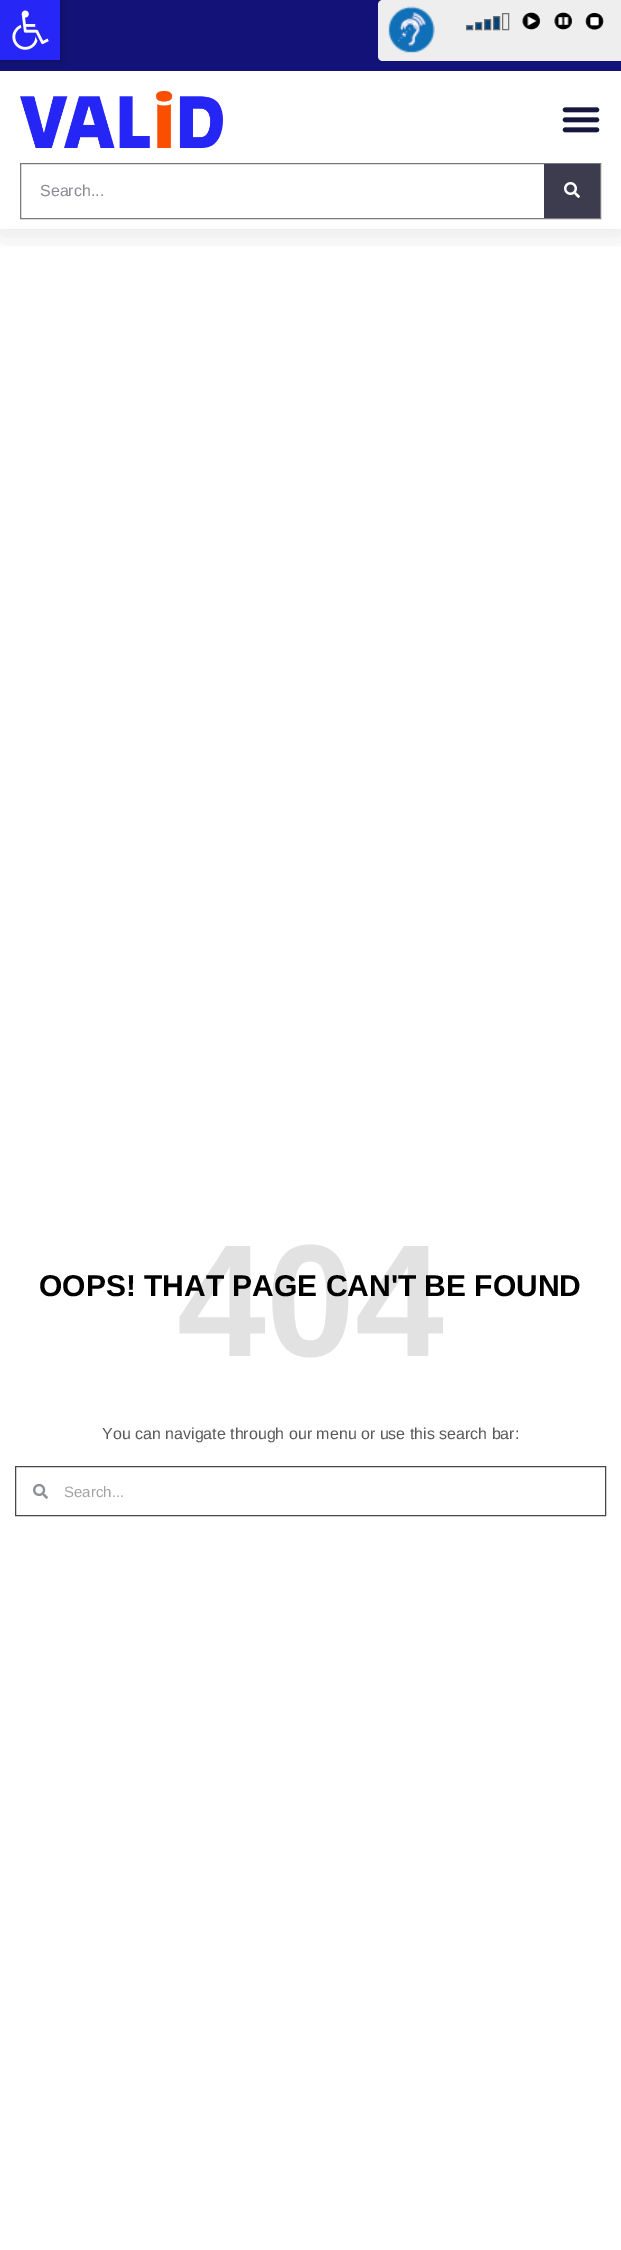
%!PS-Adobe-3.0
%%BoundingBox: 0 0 621 2250
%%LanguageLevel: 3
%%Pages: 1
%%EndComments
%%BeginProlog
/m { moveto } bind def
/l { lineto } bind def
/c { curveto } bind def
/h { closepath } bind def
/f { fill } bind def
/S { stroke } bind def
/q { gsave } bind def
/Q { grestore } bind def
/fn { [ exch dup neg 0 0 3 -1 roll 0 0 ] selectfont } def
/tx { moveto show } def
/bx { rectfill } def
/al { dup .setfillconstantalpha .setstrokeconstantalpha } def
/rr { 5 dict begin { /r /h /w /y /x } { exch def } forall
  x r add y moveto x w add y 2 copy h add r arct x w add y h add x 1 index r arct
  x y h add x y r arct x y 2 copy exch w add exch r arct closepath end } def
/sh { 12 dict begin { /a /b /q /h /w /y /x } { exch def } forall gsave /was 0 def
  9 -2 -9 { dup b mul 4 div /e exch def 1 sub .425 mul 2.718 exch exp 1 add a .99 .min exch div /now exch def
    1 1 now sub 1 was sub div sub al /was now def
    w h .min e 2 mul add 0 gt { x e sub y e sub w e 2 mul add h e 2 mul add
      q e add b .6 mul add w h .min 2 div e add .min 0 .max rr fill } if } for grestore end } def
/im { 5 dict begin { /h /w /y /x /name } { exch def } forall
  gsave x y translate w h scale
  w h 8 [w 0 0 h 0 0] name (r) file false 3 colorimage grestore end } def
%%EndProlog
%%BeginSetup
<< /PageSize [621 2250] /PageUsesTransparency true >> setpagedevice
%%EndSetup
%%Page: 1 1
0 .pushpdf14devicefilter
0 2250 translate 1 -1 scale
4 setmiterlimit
1 setgray
0 0 621 2250 bx
q
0 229 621 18 rectclip
0 setgray
0 5 621 229 0 15 0.1 sh
Q
0.071 0.071 0.471 setrgbcolor
0 0 621 71 bx
0.933 setgray
383 0 m 621 0 l 621 61 l 383 61 l 380 61 378 59 378 56 c 378 5 l 378 2 380 0 383 0 c h f
(image0.raw) 388 6 47 47 im
0 0.263 0.478 setrgbcolor
466.5 25.5 m 472.5 25.5 l 472.5 29.5 l 466.5 29.5 l h q f Q
0.447 setgray
S
0 0.263 0.478 setrgbcolor
475.5 22.5 m 481.5 22.5 l 481.5 29.5 l 475.5 29.5 l h q f Q
0.447 setgray
S
0 0.263 0.478 setrgbcolor
484.5 19.5 m 490.5 19.5 l 490.5 29.5 l 484.5 29.5 l h q f Q
0.447 setgray
S
0 0.263 0.478 setrgbcolor
493.5 16.5 m 499.5 16.5 l 499.5 29.5 l 493.5 29.5 l h q f Q
0.447 setgray
S
502.5 13.5 6 16 rectstroke
(image1.raw) 522 12 18 18 im
(image2.raw) 554 12 18 18 im
(image3.raw) 585 13 19 17 im
0 setgray
0 0 60 60 0 5 0.2 sh
0.149 0.149 0.969 setrgbcolor
0 0 60 60 bx
(image4.raw) 12 10 37 40 im
(image5.raw) 20 91 203 57 im
(image6.raw) 562 107 38 26 im
0.478 setgray
20.5 163.5 580 55 rectstroke
/LiberationSans-Regular 16 fn
0.541 0.541 0.584 setrgbcolor
(Search...) 40 196 tx
0.235 0.235 0.306 setrgbcolor
544 164 56 54 bx
(image7.raw) 564 182 16 16 im
/LiberationSans-Bold 160 fn
0.886 setgray
(404) 177 1356 tx
/LiberationSans-Bold 30 fn
0 setgray
(OOPS! THAT PAGE CAN'T BE FOUND) 39 1296 tx
/LiberationSans-Regular 16 fn
0.349 setgray
(You can navigate through our menu or use this search bar:) 102 1439 tx
0.278 setgray
15.5 1466.5 590 49 rectstroke
(image8.raw) 33 1483 15 16 im
/LiberationSans-Regular 15 fn
0.639 setgray
(Search...) 64 1497 tx
.poppdf14devicefilter showpage
%%EOF
